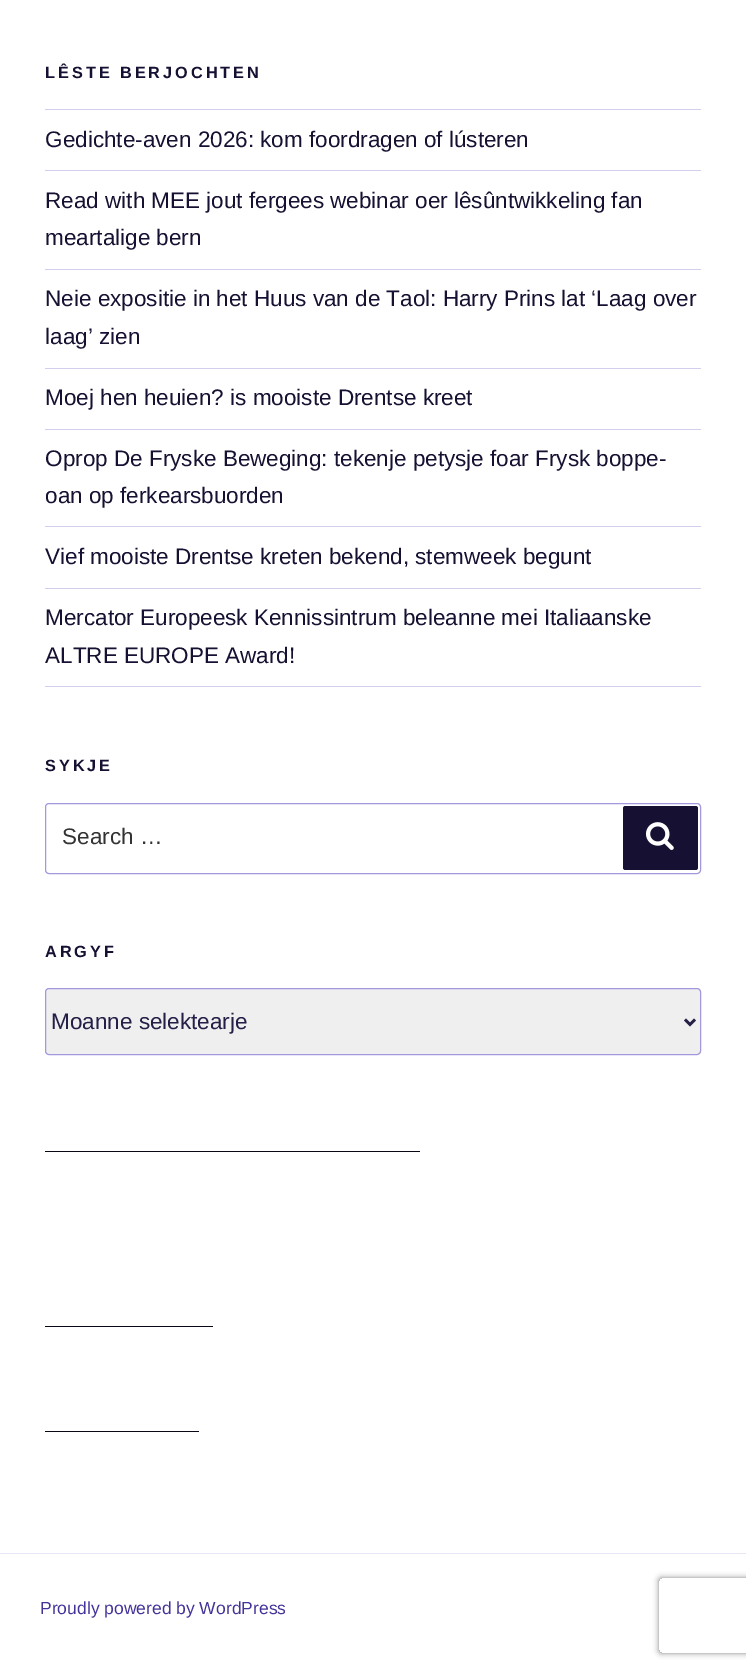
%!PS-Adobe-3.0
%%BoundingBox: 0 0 746 1669
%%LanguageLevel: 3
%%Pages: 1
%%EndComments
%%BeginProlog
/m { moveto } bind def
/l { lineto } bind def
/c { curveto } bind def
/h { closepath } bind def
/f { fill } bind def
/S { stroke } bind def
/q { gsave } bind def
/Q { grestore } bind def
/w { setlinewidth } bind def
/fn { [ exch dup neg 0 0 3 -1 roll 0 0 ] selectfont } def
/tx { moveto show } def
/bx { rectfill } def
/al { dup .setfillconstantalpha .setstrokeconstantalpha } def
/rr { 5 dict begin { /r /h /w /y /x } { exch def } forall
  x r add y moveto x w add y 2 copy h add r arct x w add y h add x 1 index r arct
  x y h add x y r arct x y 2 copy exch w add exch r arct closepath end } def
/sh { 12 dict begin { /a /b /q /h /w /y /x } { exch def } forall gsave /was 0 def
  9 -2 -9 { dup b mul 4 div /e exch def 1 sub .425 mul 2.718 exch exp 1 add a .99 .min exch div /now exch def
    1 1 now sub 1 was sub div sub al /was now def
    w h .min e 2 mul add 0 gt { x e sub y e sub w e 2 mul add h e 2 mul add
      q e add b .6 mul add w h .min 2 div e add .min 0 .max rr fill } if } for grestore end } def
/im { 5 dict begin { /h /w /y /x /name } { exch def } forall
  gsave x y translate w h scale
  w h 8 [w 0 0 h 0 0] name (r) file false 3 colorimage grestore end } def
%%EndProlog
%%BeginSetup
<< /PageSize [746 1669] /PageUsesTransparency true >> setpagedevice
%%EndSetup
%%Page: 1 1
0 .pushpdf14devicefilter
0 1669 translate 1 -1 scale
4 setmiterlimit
1 setgray
0 0 746 1669 bx
/LiberationSans-Bold 16.25 fn
0.086 0.067 0.196 setrgbcolor
45 78 m 3 0 (LÊSTE BERJOCHTEN) ashow
0.827 0.804 0.933 setrgbcolor
45 109 656 1 bx
45 170 656 1 bx
/LiberationSans-Regular 22.5 fn
0.086 0.067 0.196 setrgbcolor
(Gedichte-aven 2026: kom foordragen of lústeren) 45 147 tx
0.827 0.804 0.933 setrgbcolor
45 269 656 1 bx
0.086 0.067 0.196 setrgbcolor
(Read with MEE jout fergees webinar oer lêsûntwikkeling fan) 45 208 tx
(meartalige bern) 45 245 tx
0.827 0.804 0.933 setrgbcolor
45 368 656 1 bx
0.086 0.067 0.196 setrgbcolor
(Neie expositie in het Huus van de Taol: Harry Prins lat ‘Laag over) 45 306 tx
(laag’ zien) 45 344 tx
0.827 0.804 0.933 setrgbcolor
45 429 656 1 bx
0.086 0.067 0.196 setrgbcolor
(Moej hen heuien? is mooiste Drentse kreet) 45 405 tx
0.827 0.804 0.933 setrgbcolor
45 526 656 1 bx
0.086 0.067 0.196 setrgbcolor
(Oprop De Fryske Beweging: tekenje petysje foar Frysk boppe-) 45 466 tx
(oan op ferkearsbuorden) 45 503 tx
0.827 0.804 0.933 setrgbcolor
45 588 656 1 bx
0.086 0.067 0.196 setrgbcolor
(Vief mooiste Drentse kreten bekend, stemweek begunt) 45 564 tx
0.827 0.804 0.933 setrgbcolor
45 686 656 1 bx
0.086 0.067 0.196 setrgbcolor
(Mercator Europeesk Kennissintrum beleanne mei Italiaanske) 45 625 tx
(ALTRE EUROPE Award!) 45 663 tx
/LiberationSans-Bold 16.25 fn
45 771 m 3 0 (SYKJE) ashow
0.639 0.596 0.867 setrgbcolor
45.5 803.5 655 70 3.5 rr S
/LiberationSans-Regular 22.5 fn
0.2 setgray
(Search …) 62 844 tx
0.086 0.067 0.196 setrgbcolor
623 806 75 64 2.5 rr f
(image0.raw) 645 822 29 28 im
/LiberationSans-Bold 16.25 fn
45 957 m 3 0 (ARGYF) ashow
0.937 setgray
45.5 988.5 655 66 3.5 rr q f Q
0.639 0.596 0.867 setrgbcolor
S
0.145 0.122 0.278 setrgbcolor
2.5 w
685 1019.5 m 690 1024.5 l 695 1019.5 l S
/LiberationSans-Regular 22.5 fn
(Moanne selektearje) 51 1029 tx
0.039 0.031 0.09 setrgbcolor
45 1151 375 1 bx
45 1326 168 1 bx
45 1431 154 1 bx
0.906 0.894 0.965 setrgbcolor
0 1553 746 1 bx
/LiberationSans-Regular 17.5 fn
0.267 0.2 0.6 setrgbcolor
(Proudly powered by WordPress) 40 1614 tx
q
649 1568 m 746 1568 l 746 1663 l 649 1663 l h 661.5 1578 m 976.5 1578 l 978 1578 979 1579 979 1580.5 c 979 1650.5 l 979 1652 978 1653 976.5 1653 c 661.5 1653 l 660 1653 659 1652 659 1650.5 c 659 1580.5 l 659 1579 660 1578 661.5 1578 c h eoclip newpath
0.502 setgray
659 1578 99 75 2.5 3 1 sh
Q
.poppdf14devicefilter showpage
%%EOF
